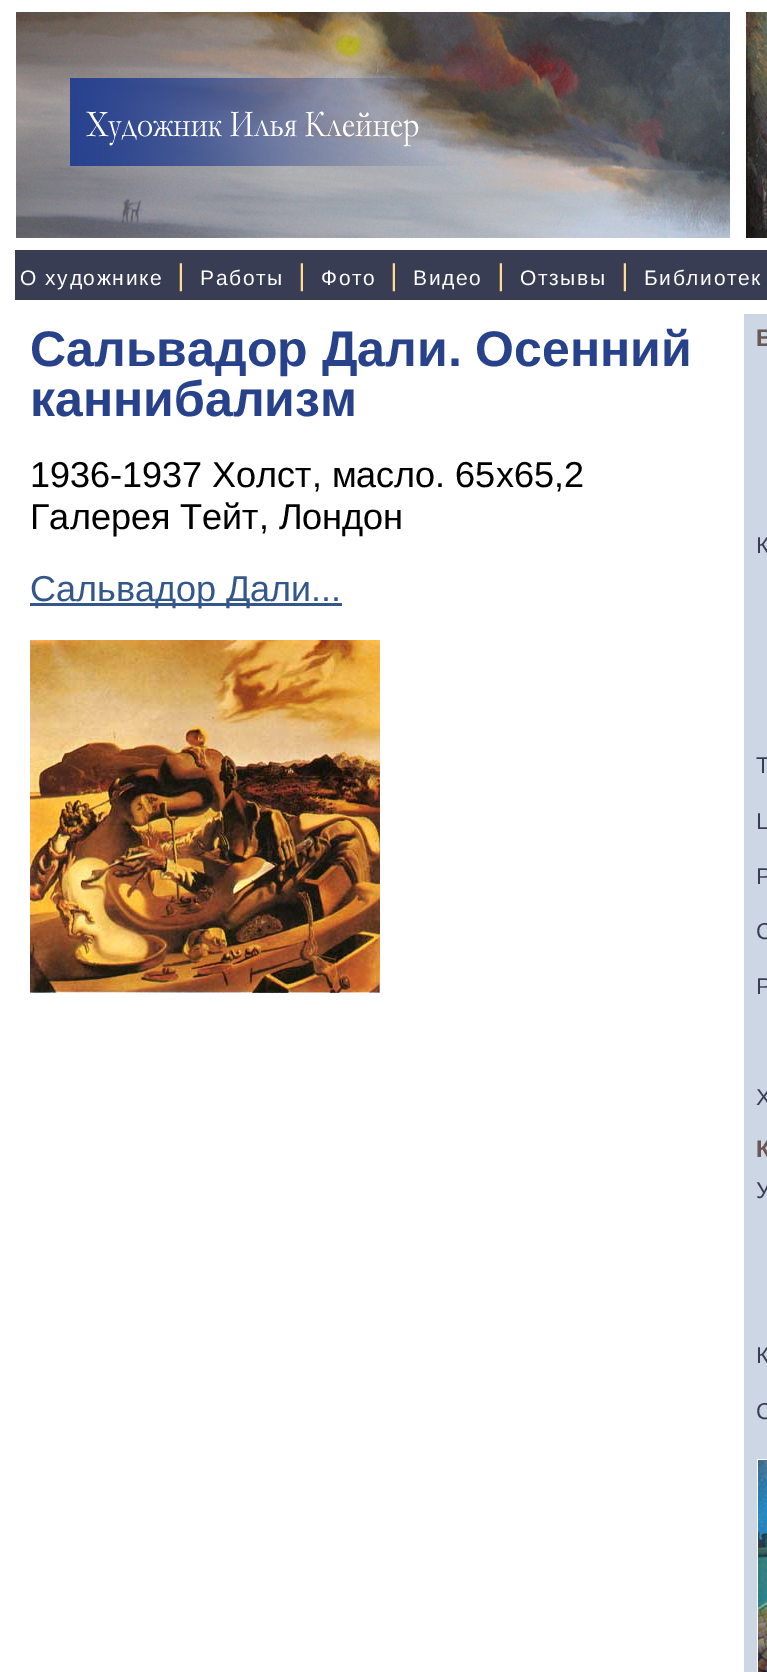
%!PS-Adobe-3.0
%%BoundingBox: 0 0 767 1672
%%LanguageLevel: 3
%%Pages: 1
%%EndComments
%%BeginProlog
/m { moveto } bind def
/fn { [ exch dup neg 0 0 3 -1 roll 0 0 ] selectfont } def
/tx { moveto show } def
/bx { rectfill } def
/im { 5 dict begin { /h /w /y /x /name } { exch def } forall
  gsave x y translate w h scale
  w h 8 [w 0 0 h 0 0] name (r) file false 3 colorimage grestore end } def
%%EndProlog
%%BeginSetup
<< /PageSize [767 1672] >> setpagedevice
%%EndSetup
%%Page: 1 1
0 1672 translate 1 -1 scale
4 setmiterlimit
1 setgray
0 0 767 1672 bx
(image0.raw) 15 8 752 232 im
0.224 0.239 0.329 setrgbcolor
15 250 752 50 bx
/LiberationSans-Regular 21 fn
1 setgray
20 285 m 1.6 0 (О художнике) ashow
/LiberationSans-Regular 30 fn
1 0.863 0.561 setrgbcolor
177 285 m 1.6 0 (|) ashow
/LiberationSans-Regular 21 fn
1 setgray
200 285 m 1.6 0 (Работы) ashow
/LiberationSans-Regular 30 fn
1 0.863 0.561 setrgbcolor
298 285 m 1.6 0 (|) ashow
/LiberationSans-Regular 21 fn
1 setgray
321 285 m 1.6 0 (Фото) ashow
/LiberationSans-Regular 30 fn
1 0.863 0.561 setrgbcolor
390 285 m 1.6 0 (|) ashow
/LiberationSans-Regular 21 fn
1 setgray
413 285 m 1.6 0 (Видео) ashow
/LiberationSans-Regular 30 fn
1 0.863 0.561 setrgbcolor
497 285 m 1.6 0 (|) ashow
/LiberationSans-Regular 21 fn
1 setgray
520 285 m 1.6 0 (Отзывы) ashow
/LiberationSans-Regular 30 fn
1 0.863 0.561 setrgbcolor
621 285 m 1.6 0 (|) ashow
/LiberationSans-Regular 21 fn
1 setgray
644 285 m 1.6 0 (Библиотек) ashow
/LiberationSans-Bold 50 fn
0.153 0.255 0.545 setrgbcolor
(Сальвадор Дали. Осенний) 30 366 tx
(каннибализм) 30 416 tx
/LiberationSans-Regular 36 fn
0 setgray
(1936-1937 Холст, масло. 65х65,2) 30 487 tx
(Галерея Тейт, Лондон) 30 529 tx
0.204 0.341 0.545 setrgbcolor
30 603 312 3 bx
(Сальвадор Дали...) 30 601 tx
(image1.raw) 30 640 350 353 im
0.804 0.839 0.898 setrgbcolor
744 314 23 1358 bx
/LiberationSans-Bold 24 fn
0.408 0.341 0.329 setrgbcolor
(В) 756 346 tx
/LiberationSans-Regular 23 fn
0.224 0.239 0.329 setrgbcolor
(К) 756 553 tx
(Т) 756 773 tx
(L) 756 829 tx
(Р) 756 884 tx
(С) 756 939 tx
(Р) 756 994 tx
(Х) 756 1105 tx
/LiberationSans-Bold 24 fn
0.408 0.341 0.329 setrgbcolor
(К) 756 1157 tx
/LiberationSans-Regular 23 fn
0.224 0.239 0.329 setrgbcolor
(У) 756 1198 tx
(К) 756 1363 tx
(С) 756 1419 tx
1 setgray
757.5 1459.5 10 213 rectstroke
(image2.raw) 758 1460 9 212 im
showpage
%%EOF
